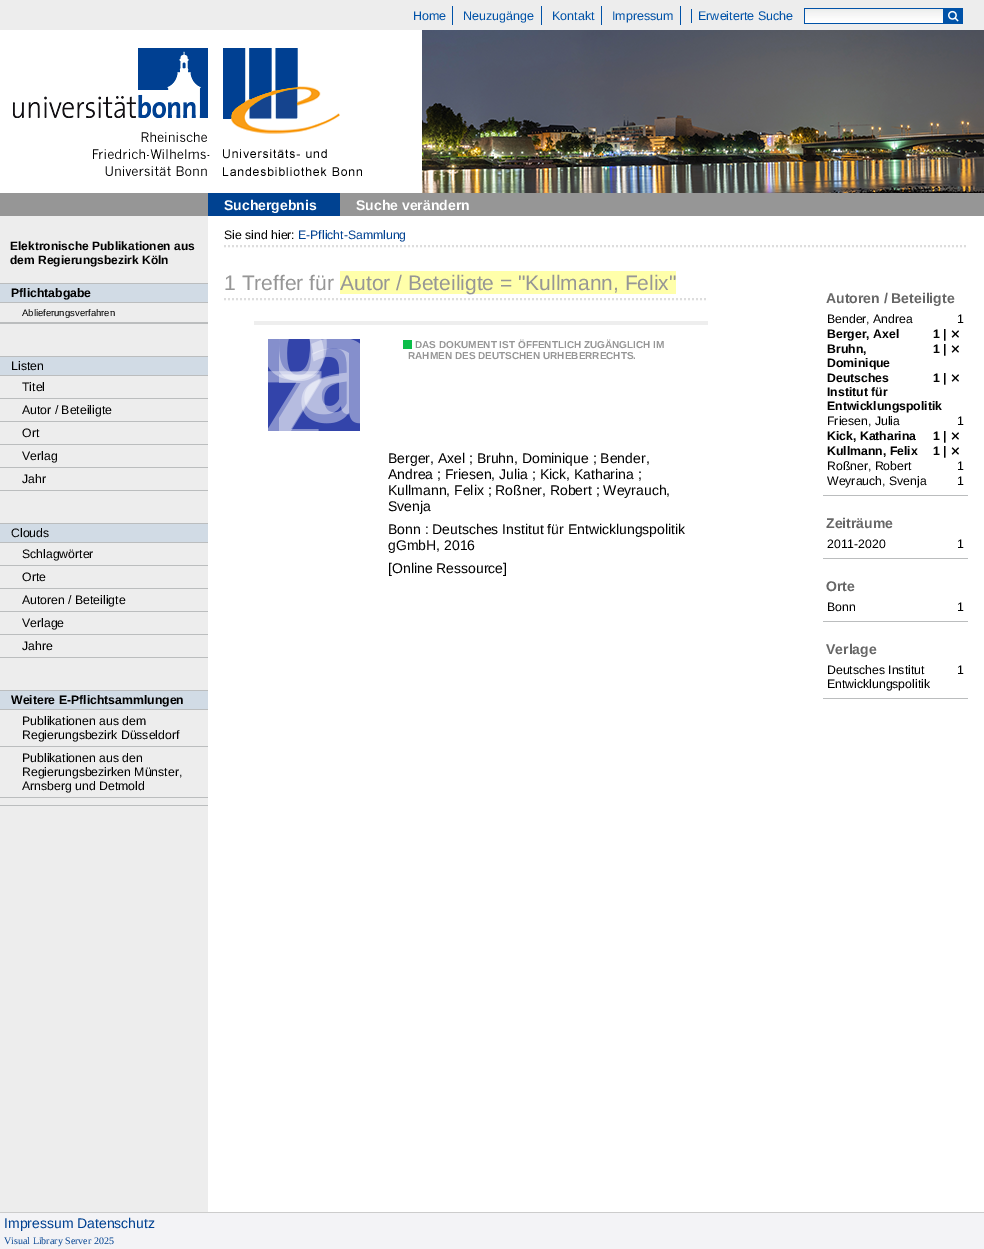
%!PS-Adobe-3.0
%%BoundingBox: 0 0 984 1249
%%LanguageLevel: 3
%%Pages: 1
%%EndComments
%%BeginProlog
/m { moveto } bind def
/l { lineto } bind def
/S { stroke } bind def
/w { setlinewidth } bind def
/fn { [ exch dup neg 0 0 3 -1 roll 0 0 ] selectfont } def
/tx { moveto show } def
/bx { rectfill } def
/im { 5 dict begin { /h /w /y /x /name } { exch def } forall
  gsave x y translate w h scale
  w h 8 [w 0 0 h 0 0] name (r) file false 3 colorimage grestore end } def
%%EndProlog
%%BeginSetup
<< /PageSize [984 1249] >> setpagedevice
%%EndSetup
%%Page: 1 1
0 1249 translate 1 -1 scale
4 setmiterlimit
1 setgray
0 0 984 1249 bx
0.929 setgray
0 0 984 30 bx
/LiberationSans-Regular 12.5 fn
0 0.322 0.659 setrgbcolor
(Home) 413 20 tx
452 6 1 19 bx
(Neuzugänge) 463 20 tx
541 6 1 19 bx
(Kontakt) 552 20 tx
601 6 1 19 bx
(Impressum) 612 20 tx
680 6 1 19 bx
691 9 1 14 bx
(Erweiterte Suche) 698 20 tx
(image0.raw) 805 9 138 14 im
804 8 139 1 bx
943 8 20 15 bx
804 23 159 1 bx
804 8 1 16 bx
(image1.raw) 948 10 11 12 im
(image2.raw) 422 30 562 163 im
(image3.raw) 13 48 197 128 im
(image4.raw) 223 48 139 128 im
0.588 setgray
0 193 984 23 bx
0 0.259 0.569 setrgbcolor
208 193 132 23 bx
/LiberationSans-Bold 14 fn
1 setgray
(Suchergebnis) 224 210 tx
(Suche verändern) 356 210 tx
0.929 setgray
0 216 208 996 bx
/LiberationSans-Bold 12 fn
0 setgray
(Elektronische Publikationen aus) 10 250 tx
(dem Regierungsbezirk Köln) 10 264 tx
0.82 0.859 0.898 setrgbcolor
0 284 208 18 bx
0.733 0.741 0.745 setrgbcolor
0 283 208 1 bx
0 302 208 1 bx
/LiberationSans-Bold 12.25 fn
0 setgray
(Pflichtabgabe) 11 297 tx
0.733 0.741 0.745 setrgbcolor
0 322 208 2 bx
/LiberationSans-Regular 9.5 fn
0 setgray
(Ablieferungsverfahren) 22 316 tx
0.82 0.859 0.898 setrgbcolor
0 357 208 18 bx
0.733 0.741 0.745 setrgbcolor
0 356 208 1 bx
0 375 208 1 bx
/LiberationSans-Regular 12.25 fn
0 setgray
(Listen) 11 370 tx
0.733 0.741 0.745 setrgbcolor
0 398 208 1 bx
0 setgray
(Titel) 22 391 tx
0.733 0.741 0.745 setrgbcolor
0 421 208 1 bx
0 setgray
(Autor / Beteiligte) 22 414 tx
0.733 0.741 0.745 setrgbcolor
0 444 208 1 bx
0 setgray
(Ort) 22 437 tx
0.733 0.741 0.745 setrgbcolor
0 467 208 1 bx
0 setgray
(Verlag) 22 460 tx
0.733 0.741 0.745 setrgbcolor
0 490 208 1 bx
0 setgray
(Jahr) 22 483 tx
0.82 0.859 0.898 setrgbcolor
0 524 208 18 bx
0.733 0.741 0.745 setrgbcolor
0 523 208 1 bx
0 542 208 1 bx
0 setgray
(Clouds) 11 537 tx
0.733 0.741 0.745 setrgbcolor
0 565 208 1 bx
0 setgray
(Schlagwörter) 22 558 tx
0.733 0.741 0.745 setrgbcolor
0 588 208 1 bx
0 setgray
(Orte) 22 581 tx
0.733 0.741 0.745 setrgbcolor
0 611 208 1 bx
0 setgray
(Autoren / Beteiligte) 22 604 tx
0.733 0.741 0.745 setrgbcolor
0 634 208 1 bx
0 setgray
(Verlage) 22 627 tx
0.733 0.741 0.745 setrgbcolor
0 657 208 1 bx
0 setgray
(Jahre) 22 650 tx
0.82 0.859 0.898 setrgbcolor
0 691 208 18 bx
0.733 0.741 0.745 setrgbcolor
0 690 208 1 bx
0 709 208 1 bx
/LiberationSans-Bold 12.25 fn
0 setgray
(Weitere E-Pflichtsammlungen) 11 704 tx
0.733 0.741 0.745 setrgbcolor
0 805 208 1 bx
0 746 208 1 bx
/LiberationSans-Regular 12.25 fn
0 setgray
(Publikationen aus dem) 22 725 tx
(Regierungsbezirk Düsseldorf) 22 739 tx
0.733 0.741 0.745 setrgbcolor
0 797 208 1 bx
0 setgray
(Publikationen aus den) 22 762 tx
(Regierungsbezirken Münster,) 22 776 tx
(Arnsberg und Detmold) 22 790 tx
0.867 setgray
2 w
[2 2] 0 setdash
224 246 m 968 246 l S
0 setgray
(Sie sind hier:) 224 239 tx
0 0.255 0.569 setrgbcolor
(E-Pflicht-Sammlung) 298 239 tx
0.867 setgray
224 299 m 708 299 l S
/LiberationSans-Regular 21 fn
0.588 setgray
(1 Treffer für) 224 290 tx
1 1 0.667 setrgbcolor
340 271 336 23 bx
0.588 setgray
(Autor / Beteiligte = "Kullmann, Felix") 340 290 tx
0.933 setgray
254 321 454 4 bx
0.2 0.267 0.667 setrgbcolor
268 339 92 92 bx
(image5.raw) 268 339 92 92 im
(image6.raw) 279 339 70 92 im
0.043 0.745 0.286 setrgbcolor
403 340 9 9 bx
/LiberationSans-Bold 10 fn
0.588 setgray
(DAS DOKUMENT IST ÖFFENTLICH ZUGÄNGLICH IM) 415 348 tx
(RAHMEN DES DEUTSCHEN URHEBERRECHTS.) 408 359 tx
/LiberationSans-Regular 14 fn
0 setgray
(Berger, Axel ; Bruhn, Dominique ; Bender,) 388 463 tx
(Andrea ; Friesen, Julia ; Kick, Katharina ;) 388 479 tx
(Kullmann, Felix ; Roßner, Robert ; Weyrauch,) 388 495 tx
(Svenja) 388 511 tx
(Bonn : Deutsches Institut für Entwicklungspolitik) 388 534 tx
(gGmbH, 2016) 388 550 tx
([Online Ressource]) 388 573 tx
/LiberationSans-Bold 14 fn
0.4 setgray
(Autoren / Beteiligte) 826 303 tx
0.733 0.741 0.745 setrgbcolor
823 495 145 1 bx
/LiberationSans-Regular 12.25 fn
0 setgray
(Bender, Andrea) 827 323 tx
(1) 957 323 tx
/LiberationSans-Bold 12.25 fn
(Berger, Axel) 827 338 tx
(1 |) 933 338 tx
/DejaVuSans-Bold 12.25 fn
(⨯) 950 338 tx
/LiberationSans-Bold 12.25 fn
(Bruhn,) 827 353 tx
(1 |) 933 353 tx
/DejaVuSans-Bold 12.25 fn
(⨯) 950 353 tx
/LiberationSans-Bold 12.25 fn
(Dominique) 827 367 tx
(Deutsches) 827 382 tx
(1 |) 933 382 tx
/DejaVuSans-Bold 12.25 fn
(⨯) 950 382 tx
/LiberationSans-Bold 12.25 fn
(Institut für) 827 396 tx
(Entwicklungspolitik) 827 410 tx
/LiberationSans-Regular 12.25 fn
(Friesen, Julia) 827 425 tx
(1) 957 425 tx
/LiberationSans-Bold 12.25 fn
(Kick, Katharina) 827 440 tx
(1 |) 933 440 tx
/DejaVuSans-Bold 12.25 fn
(⨯) 950 440 tx
/LiberationSans-Bold 12.25 fn
(Kullmann, Felix) 827 455 tx
(1 |) 933 455 tx
/DejaVuSans-Bold 12.25 fn
(⨯) 950 455 tx
/LiberationSans-Regular 12.25 fn
(Roßner, Robert) 827 470 tx
(1) 957 470 tx
(Weyrauch, Svenja) 827 485 tx
(1) 957 485 tx
/LiberationSans-Bold 14 fn
0.4 setgray
(Zeiträume) 826 528 tx
0.733 0.741 0.745 setrgbcolor
823 558 145 1 bx
/LiberationSans-Regular 12.25 fn
0 setgray
(2011-2020) 827 548 tx
(1) 957 548 tx
/LiberationSans-Bold 14 fn
0.4 setgray
(Orte) 826 591 tx
0.733 0.741 0.745 setrgbcolor
823 621 145 1 bx
/LiberationSans-Regular 12.25 fn
0 setgray
(Bonn) 827 611 tx
(1) 957 611 tx
/LiberationSans-Bold 14 fn
0.4 setgray
(Verlage) 826 654 tx
0.733 0.741 0.745 setrgbcolor
823 698 145 1 bx
/LiberationSans-Regular 12.25 fn
0 setgray
(Deutsches Institut) 827 674 tx
(1) 957 674 tx
(Entwicklungspolitik) 827 688 tx
0.953 0.953 0.965 setrgbcolor
0 1213 984 36 bx
0.8 setgray
0 1212 984 1 bx
/LiberationSans-Regular 14 fn
0 0.255 0.569 setrgbcolor
(Impressum Datenschutz) 4 1228 tx
/LiberationSerif-Regular 10 fn
(Visual Library Server 2025) 4 1244 tx
showpage
%%EOF
